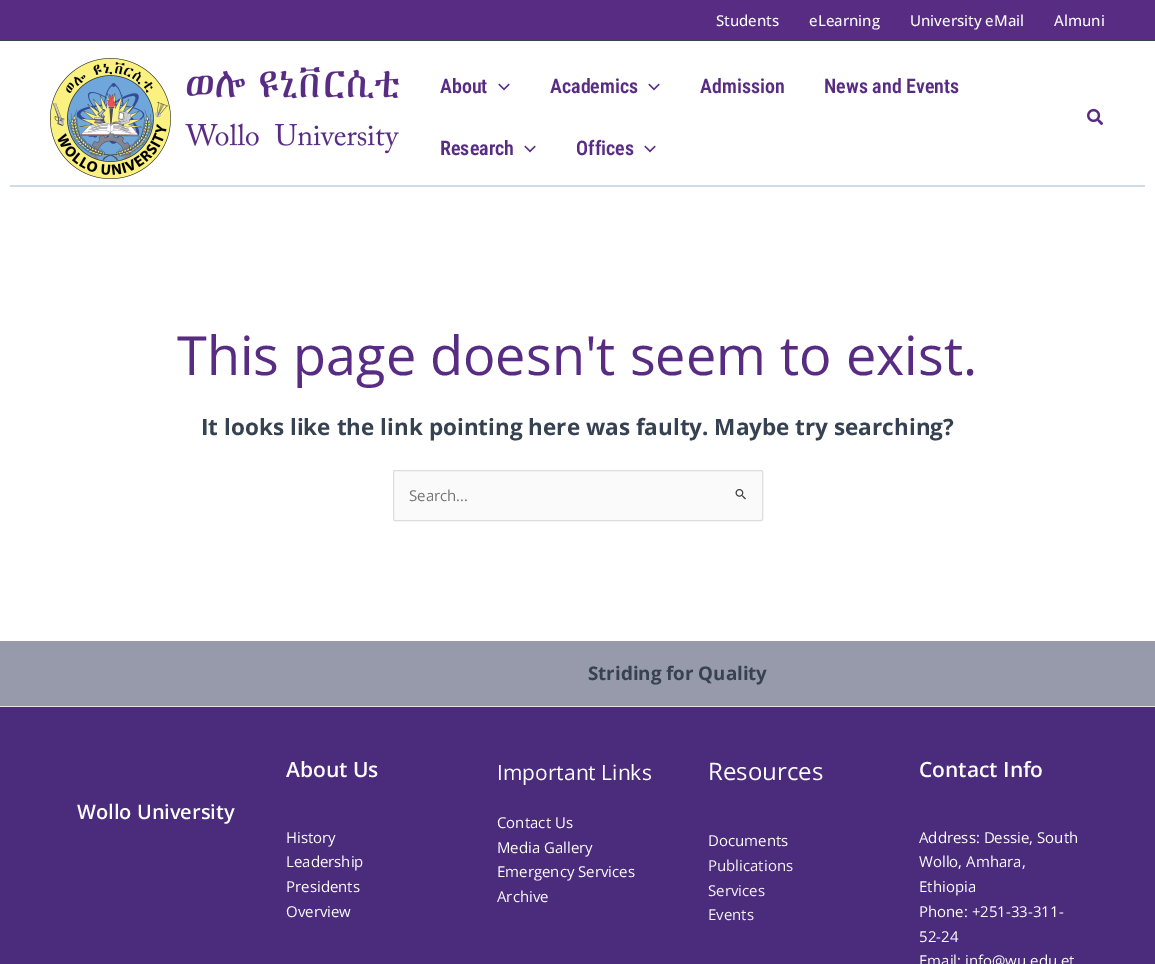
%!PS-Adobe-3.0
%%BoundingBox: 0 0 1155 964
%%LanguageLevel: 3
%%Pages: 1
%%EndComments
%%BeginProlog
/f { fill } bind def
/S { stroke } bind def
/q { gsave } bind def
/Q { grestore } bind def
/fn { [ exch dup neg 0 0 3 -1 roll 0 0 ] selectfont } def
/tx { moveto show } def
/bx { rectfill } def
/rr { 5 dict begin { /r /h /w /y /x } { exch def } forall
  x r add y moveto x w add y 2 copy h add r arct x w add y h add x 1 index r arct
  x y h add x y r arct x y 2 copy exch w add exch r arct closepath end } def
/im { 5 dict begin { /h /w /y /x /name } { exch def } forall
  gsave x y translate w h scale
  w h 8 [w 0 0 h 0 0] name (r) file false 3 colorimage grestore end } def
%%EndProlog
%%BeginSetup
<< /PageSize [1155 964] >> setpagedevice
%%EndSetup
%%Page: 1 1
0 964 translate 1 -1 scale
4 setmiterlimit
1 setgray
0 0 1155 964 bx
0.345 0.173 0.514 setrgbcolor
0 0 1155 40 bx
0.212 0.255 0.318 setrgbcolor
0 40 1155 1 bx
/OpenSans-Medium 15 fn
1 setgray
(Students) 716 26 tx
(eLearning) 809 26 tx
(University eMail) 910 26 tx
(Almuni) 1054 26 tx
0.82 0.855 0.898 setrgbcolor
10 185 1135 2 bx
(image0.raw) 50 58 350 121 im
/RobotoCondensed-SemiBold 20 fn
0.345 0.173 0.514 setrgbcolor
(About) 440 93 tx
(image1.raw) 498 83 12 8 im
(Academics) 550 93 tx
(image1.raw) 648 83 12 8 im
(Admission) 700 93 tx
(News and Events) 824 93 tx
(Research) 440 155 tx
(image1.raw) 524 145 12 8 im
(Offices) 576 155 tx
(image1.raw) 644 145 12 8 im
(image2.raw) 1087 108 16 17 im
/OpenSans-Regular 54 fn
(This page doesn't seem to exist.) 177 375 tx
/OpenSans-Bold 22.5 fn
0.212 0.255 0.318 setrgbcolor
(It looks like the link pointing here was faulty. Maybe try searching?) 201 435 tx
0.98 setgray
393.5 470.5 369 50 1.5 rr q f Q
0.867 setgray
S
/OpenSans-Regular 15 fn
0.459 setgray
(Search...) 409 501 tx
(image3.raw) 735 489 11 11 im
0.592 0.604 0.667 setrgbcolor
0 641 1155 65 bx
/OpenSans-Bold 18.75 fn
0.212 0.255 0.318 setrgbcolor
(Striding for Quality) 588 680 tx
0.294 0.169 0.486 setrgbcolor
0 707 1155 257 bx
0.902 setgray
0 706 1155 1 bx
/OpenSans-SemiBold 20 fn
1 setgray
(Wollo University) 77 819 tx
/OpenSans-SemiBold 21 fn
(About Us) 286 777 tx
/OpenSans-Regular 15 fn
(History) 286 843 tx
(Leadership) 286 867 tx
(Presidents) 286 892 tx
(Overview) 286 917 tx
/OpenSans-Regular 21 fn
(Important Links) 497 780 tx
/OpenSans-Regular 15 fn
(Contact Us) 497 828 tx
(Media Gallery) 497 853 tx
(Emergency Services) 497 877 tx
(Archive) 497 902 tx
/OpenSans-Regular 24 fn
(Resources) 708 780 tx
/OpenSans-Regular 15 fn
(Documents) 708 846 tx
0.961 setgray
(Publications) 708 871 tx
(Services) 708 896 tx
(Events) 708 920 tx
/OpenSans-SemiBold 21 fn
1 setgray
(Contact Info) 919 777 tx
/OpenSans-Regular 15 fn
(Address: Dessie, South) 919 843 tx
(Wollo, Amhara,) 919 867 tx
(Ethiopia) 919 892 tx
(Phone: +251-33-311-) 919 917 tx
(52-24) 919 942 tx
(Email: info@wu.edu.et) 919 966 tx
showpage
%%EOF
